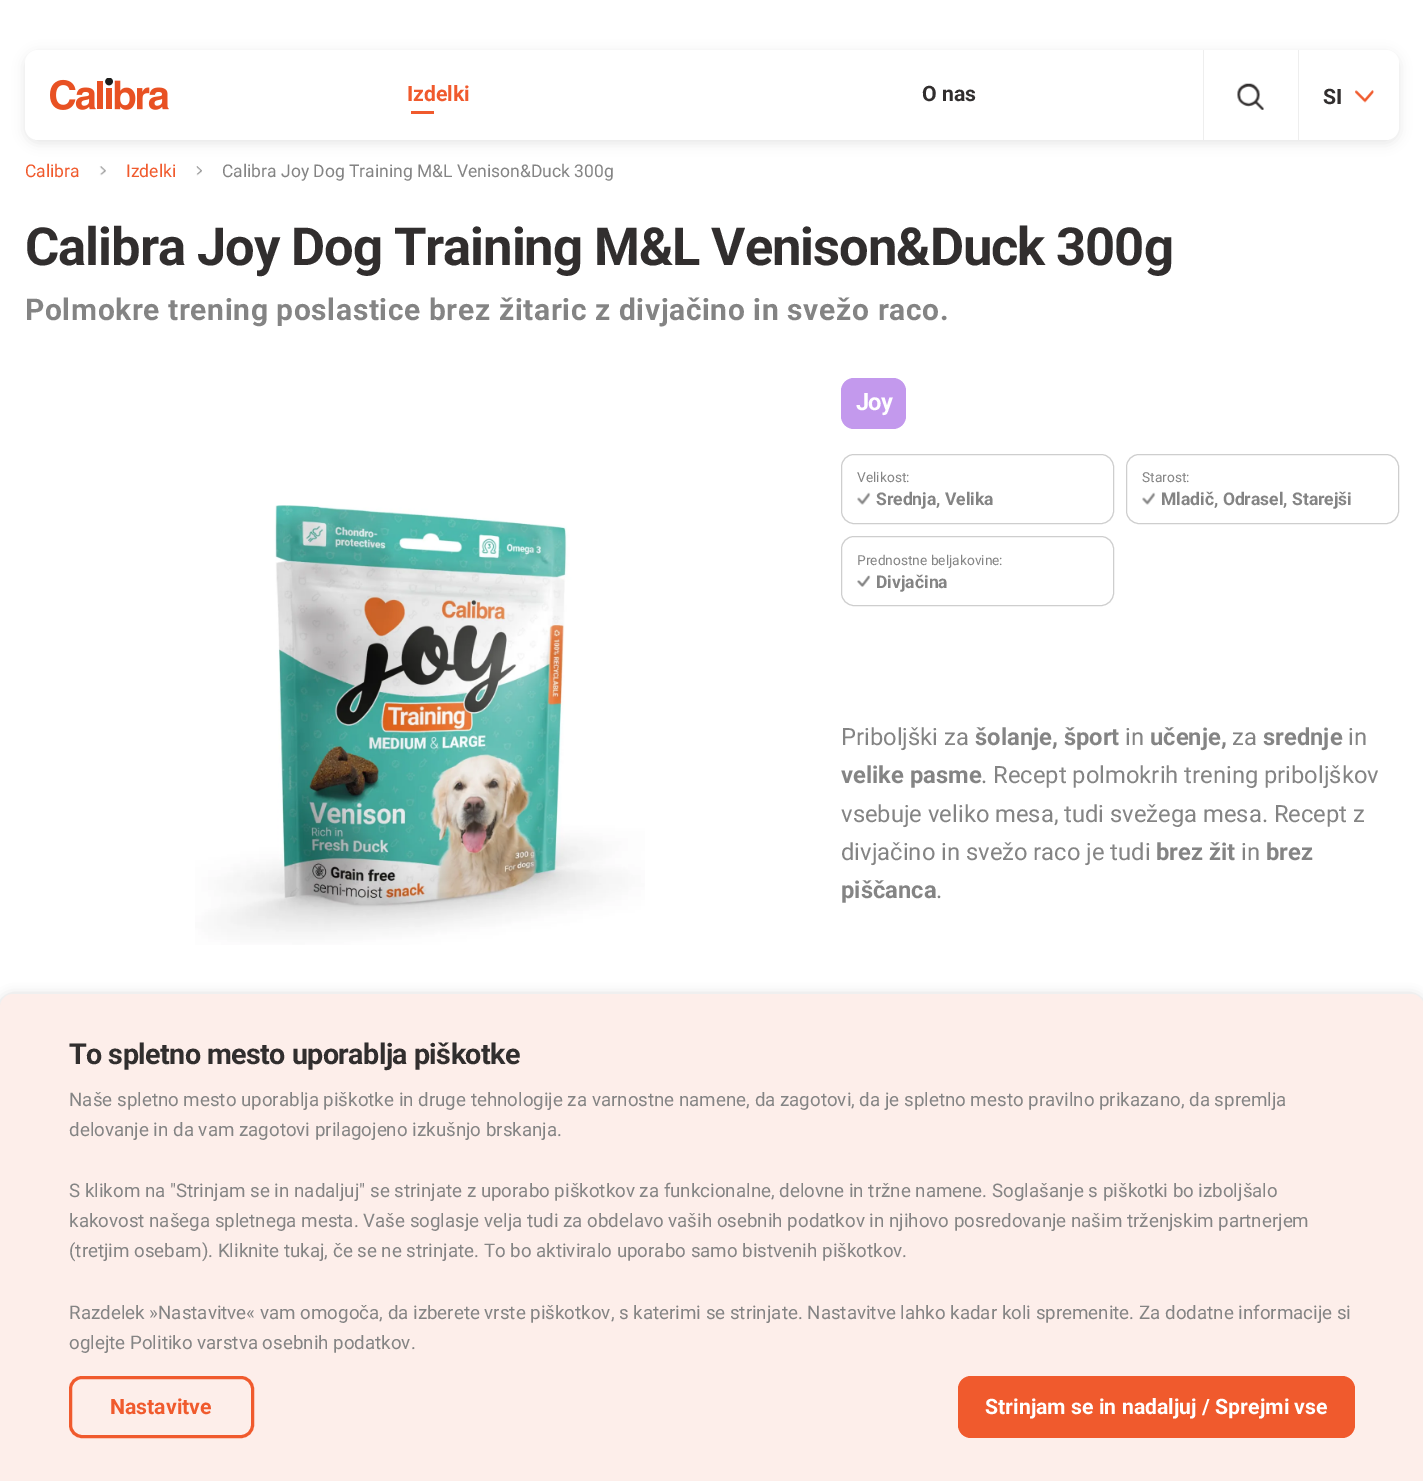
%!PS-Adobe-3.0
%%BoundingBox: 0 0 1423 1481
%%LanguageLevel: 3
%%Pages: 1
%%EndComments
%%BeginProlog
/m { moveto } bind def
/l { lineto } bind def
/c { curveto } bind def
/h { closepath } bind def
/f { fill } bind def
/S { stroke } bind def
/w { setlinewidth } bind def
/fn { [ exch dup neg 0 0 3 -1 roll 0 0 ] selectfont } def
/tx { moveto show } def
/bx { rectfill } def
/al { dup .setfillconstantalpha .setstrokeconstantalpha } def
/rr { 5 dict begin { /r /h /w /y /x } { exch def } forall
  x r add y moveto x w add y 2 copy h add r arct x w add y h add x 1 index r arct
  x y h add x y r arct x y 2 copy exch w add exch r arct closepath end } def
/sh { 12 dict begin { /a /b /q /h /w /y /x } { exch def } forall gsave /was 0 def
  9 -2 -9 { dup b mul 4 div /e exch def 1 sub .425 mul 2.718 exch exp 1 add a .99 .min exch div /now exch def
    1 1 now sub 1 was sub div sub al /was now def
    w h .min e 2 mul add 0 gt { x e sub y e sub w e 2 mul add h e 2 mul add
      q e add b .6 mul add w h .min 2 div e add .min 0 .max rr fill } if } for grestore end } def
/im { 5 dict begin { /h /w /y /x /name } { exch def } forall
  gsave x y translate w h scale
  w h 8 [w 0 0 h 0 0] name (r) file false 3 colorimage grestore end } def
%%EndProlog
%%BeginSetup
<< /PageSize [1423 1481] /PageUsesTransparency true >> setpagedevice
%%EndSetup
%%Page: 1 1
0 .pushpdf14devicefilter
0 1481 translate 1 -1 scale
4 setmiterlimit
1 setgray
0 0 1423 1481 bx
0 setgray
25 53 1374 90 13 6 0.1 sh
1 setgray
25 50 1374 90 13 rr f
(image0.raw) 50 78 119 32 im
/Roboto-Bold 21.25 fn
0.941 0.353 0.176 setrgbcolor
(Izdelki) 407 101 tx
411 111 23 3 bx
0.192 0.18 0.18 setrgbcolor
(O nas) 922 101 tx
0.933 setgray
1203 50 1 90 bx
(image1.raw) 1237 83 27 27 im
1298 50 1 90 bx
0.192 0.18 0.18 setrgbcolor
(SI) 1323 104 tx
(image2.raw) 1355 90 19 13 im
/Roboto-Regular 17.5 fn
0.941 0.353 0.176 setrgbcolor
(Calibra) 25 177 tx
(image3.raw) 99 166 7 10 im
(Izdelki) 126 177 tx
(image4.raw) 196 166 6 10 im
0.518 setgray
(Calibra Joy Dog Training M&L Venison&Duck 300g) 222 177 tx
/Roboto-Bold 52.5 fn
0.192 0.18 0.18 setrgbcolor
25 265 m -1.05 0 (Calibra Joy Dog Training M&L Venison&Duck 300g) ashow
/Roboto-Bold 30 fn
0.518 setgray
25 320 m 0.6 0 (Polmokre trening poslastice brez žitaric z divjačino in svežo raco.) ashow
(image5.raw) 195 505 450 440 im
0.765 0.6 0.929 setrgbcolor
841 378 65 51 13 rr f
/Roboto-Bold 23.75 fn
1 setgray
856 410 m -1 0 (Joy) ashow
0.808 setgray
841.5 454.5 272 69 12.5 rr S
/Roboto-Regular 13.75 fn
0.518 setgray
(Velikost:) 857 482 tx
(image6.raw) 857 492 14 13 im
/Roboto-Bold 17.5 fn
(Srednja, Velika) 876 505 tx
0.808 setgray
1126.5 454.5 272 69 12.5 rr S
/Roboto-Regular 13.75 fn
0.518 setgray
(Starost:) 1142 482 tx
(image6.raw) 1142 492 14 13 im
/Roboto-Bold 17.5 fn
(Mladič, Odrasel, Starejši) 1161 505 tx
0.808 setgray
841.5 536.5 272 69 12.5 rr S
/Roboto-Regular 13.75 fn
0.518 setgray
(Prednostne beljakovine:) 857 565 tx
(image7.raw) 857 575 14 12 im
/Roboto-Bold 17.5 fn
(Divjačina) 876 588 tx
/Roboto-Regular 23.75 fn
(Priboljški za) 841 745 tx
/Roboto-Bold 23.75 fn
(šolanje, šport) 975 745 tx
/Roboto-Regular 23.75 fn
(in) 1125 745 tx
/Roboto-Bold 23.75 fn
(učenje,) 1150 745 tx
/Roboto-Regular 23.75 fn
(za) 1232 745 tx
/Roboto-Bold 23.75 fn
(srednje) 1263 745 tx
/Roboto-Regular 23.75 fn
(in) 1348 745 tx
/Roboto-Bold 23.75 fn
(velike pasme) 841 783 tx
/Roboto-Regular 23.75 fn
(. Recept polmokrih trening priboljškov) 981 783 tx
(vsebuje veliko mesa, tudi svežega mesa. Recept z) 841 822 tx
(divjačino in svežo raco je tudi) 841 860 tx
/Roboto-Bold 23.75 fn
(brez žit) 1156 860 tx
/Roboto-Regular 23.75 fn
(in) 1241 860 tx
/Roboto-Bold 23.75 fn
(brez) 1266 860 tx
(piščanca) 841 898 tx
/Roboto-Regular 23.75 fn
(.) 936 898 tx
0 setgray
0 996 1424 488 13 6 0.21 sh
0.992 0.933 0.918 setrgbcolor
13 994 m 1411 994 l 1418 994 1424 1000 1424 1007 c 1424 1481 l 0 1481 l 0 1007 l 0 1000 6 994 13 994 c h f
/Roboto-Bold 28.75 fn
0.192 0.18 0.18 setrgbcolor
69 1064 m -0.6 0 (To spletno mesto uporablja piškotke) ashow
/Roboto-Regular 18.75 fn
0.518 setgray
(Naše spletno mesto uporablja piškotke in druge tehnologije za varnostne namene, da zagotovi, da je spletno mesto pravilno prikazano, da spremlja) 69 1106 tx
(delovanje in da vam zagotovi prilagojeno izkušnjo brskanja.) 69 1136 tx
(S klikom na "Strinjam se in nadaljuj" se strinjate z uporabo piškotkov za funkcionalne, delovne in tržne namene. Soglašanje s piškotki bo izboljšalo) 69 1197 tx
(kakovost našega spletnega mesta. Vaše soglasje velja tudi za obdelavo vaših osebnih podatkov in njihovo posredovanje našim trženjskim partnerjem) 69 1227 tx
(\(tretjim osebam\). Kliknite tukaj, če se ne strinjate. To bo aktiviralo uporabo samo bistvenih piškotkov.) 69 1257 tx
(Razdelek »Nastavitve« vam omogoča, da izberete vrste piškotkov, s katerimi se strinjate. Nastavitve lahko kadar koli spremenite. Za dodatne informacije si) 69 1319 tx
(oglejte Politiko varstva osebnih podatkov.) 69 1349 tx
0.941 0.353 0.176 setrgbcolor
3 w
70.5 1377.5 182 59 11.5 rr S
/Roboto-Bold 21.25 fn
(Nastavitve) 110 1414 tx
958 1376 397 62 13 rr f
1 setgray
(Strinjam se in nadaljuj / Sprejmi vse) 985 1414 tx
.poppdf14devicefilter showpage
%%EOF
